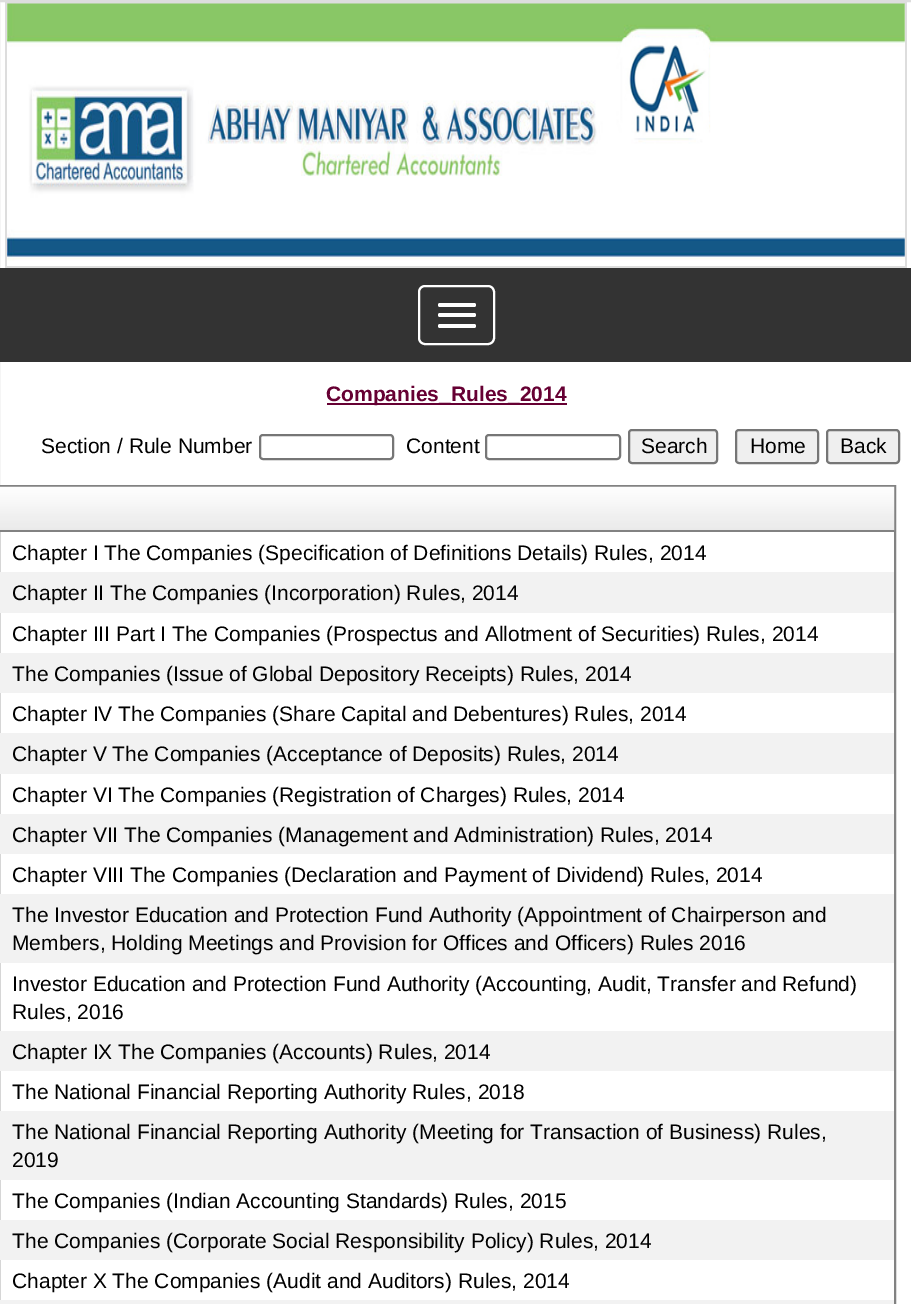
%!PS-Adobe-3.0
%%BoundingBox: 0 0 911 1304
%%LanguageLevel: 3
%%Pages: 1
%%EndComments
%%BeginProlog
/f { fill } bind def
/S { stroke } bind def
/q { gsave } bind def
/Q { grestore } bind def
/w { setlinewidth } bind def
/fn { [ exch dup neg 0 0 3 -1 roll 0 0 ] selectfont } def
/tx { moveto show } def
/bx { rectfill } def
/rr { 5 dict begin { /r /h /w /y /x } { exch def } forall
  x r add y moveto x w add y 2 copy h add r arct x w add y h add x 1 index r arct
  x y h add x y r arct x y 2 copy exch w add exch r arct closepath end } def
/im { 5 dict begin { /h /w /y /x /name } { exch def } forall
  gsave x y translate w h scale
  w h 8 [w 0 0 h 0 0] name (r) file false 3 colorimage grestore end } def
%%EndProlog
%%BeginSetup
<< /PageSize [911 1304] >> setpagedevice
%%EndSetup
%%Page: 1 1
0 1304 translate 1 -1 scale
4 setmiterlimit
1 setgray
0 0 911 1304 bx
0.867 setgray
2 w
-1 1 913 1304 rectstroke
5 2 902 2 bx
905 2 2 266 bx
5 266 902 2 bx
5 2 2 266 bx
(image0.raw) 7 3 898 258 im
0.2 setgray
0 268 911 94 bx
1 setgray
419 286 75 58 6 rr S
438 303 38 4 2 rr f
438 313 38 4 2 rr f
438 324 38 4 2 rr f
0.4 0 0.2 setrgbcolor
327 403 240 2 bx
/LiberationSans-Bold 21 fn
(Companies_Rules_2014) 326 401 tx
/LiberationSans-Regular 21 fn
0 setgray
(Section / Rule Number) 41 453 tx
0.463 setgray
260 435 133 24 3 rr S
0 setgray
(Content) 406 453 tx
0.463 setgray
486 435 134 24 3 rr S
0.937 setgray
629 430 88 33 3 rr q f Q
0.463 setgray
S
0 setgray
(Search) 641 453 tx
0.937 setgray
736 430 82 33 3 rr q f Q
0.463 setgray
S
0 setgray
(Home) 750 453 tx
0.937 setgray
827 430 72 33 3 rr q f Q
0.463 setgray
S
0 setgray
(Back) 840 453 tx
0.51 setgray
-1 486 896 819 rectstroke
(image1.raw) 0 486 895 45 im
0 530 894 2 bx
0 setgray
(Chapter I The Companies \(Specification of Definitions Details\) Rules, 2014) 12 560 tx
0.949 setgray
0 572 894 41 bx
0 setgray
(Chapter II The Companies \(Incorporation\) Rules, 2014) 12 600 tx
(Chapter III Part I The Companies \(Prospectus and Allotment of Securities\) Rules, 2014) 12 641 tx
0.949 setgray
0 653 894 40 bx
0 setgray
(The Companies \(Issue of Global Depository Receipts\) Rules, 2014) 12 681 tx
(Chapter IV The Companies \(Share Capital and Debentures\) Rules, 2014) 12 721 tx
0.949 setgray
0 733 894 41 bx
0 setgray
(Chapter V The Companies \(Acceptance of Deposits\) Rules, 2014) 12 761 tx
(Chapter VI The Companies \(Registration of Charges\) Rules, 2014) 12 802 tx
0.949 setgray
0 814 894 40 bx
0 setgray
(Chapter VII The Companies \(Management and Administration\) Rules, 2014) 12 842 tx
(Chapter VIII The Companies \(Declaration and Payment of Dividend\) Rules, 2014) 12 882 tx
0.949 setgray
0 894 894 69 bx
0 setgray
(The Investor Education and Protection Fund Authority \(Appointment of Chairperson and) 12 922 tx
(Members, Holding Meetings and Provision for Offices and Officers\) Rules 2016) 12 950 tx
(Investor Education and Protection Fund Authority \(Accounting, Audit, Transfer and Refund\)) 12 991 tx
(Rules, 2016) 12 1019 tx
0.949 setgray
0 1031 894 40 bx
0 setgray
(Chapter IX The Companies \(Accounts\) Rules, 2014) 12 1059 tx
(The National Financial Reporting Authority Rules, 2018) 12 1099 tx
0.949 setgray
0 1111 894 69 bx
0 setgray
(The National Financial Reporting Authority \(Meeting for Transaction of Business\) Rules,) 12 1139 tx
(2019) 12 1167 tx
(The Companies \(Indian Accounting Standards\) Rules, 2015) 12 1208 tx
0.949 setgray
0 1220 894 40 bx
0 setgray
(The Companies \(Corporate Social Responsibility Policy\) Rules, 2014) 12 1248 tx
(Chapter X The Companies \(Audit and Auditors\) Rules, 2014) 12 1288 tx
0.949 setgray
0 1300 894 4 bx
showpage
%%EOF
